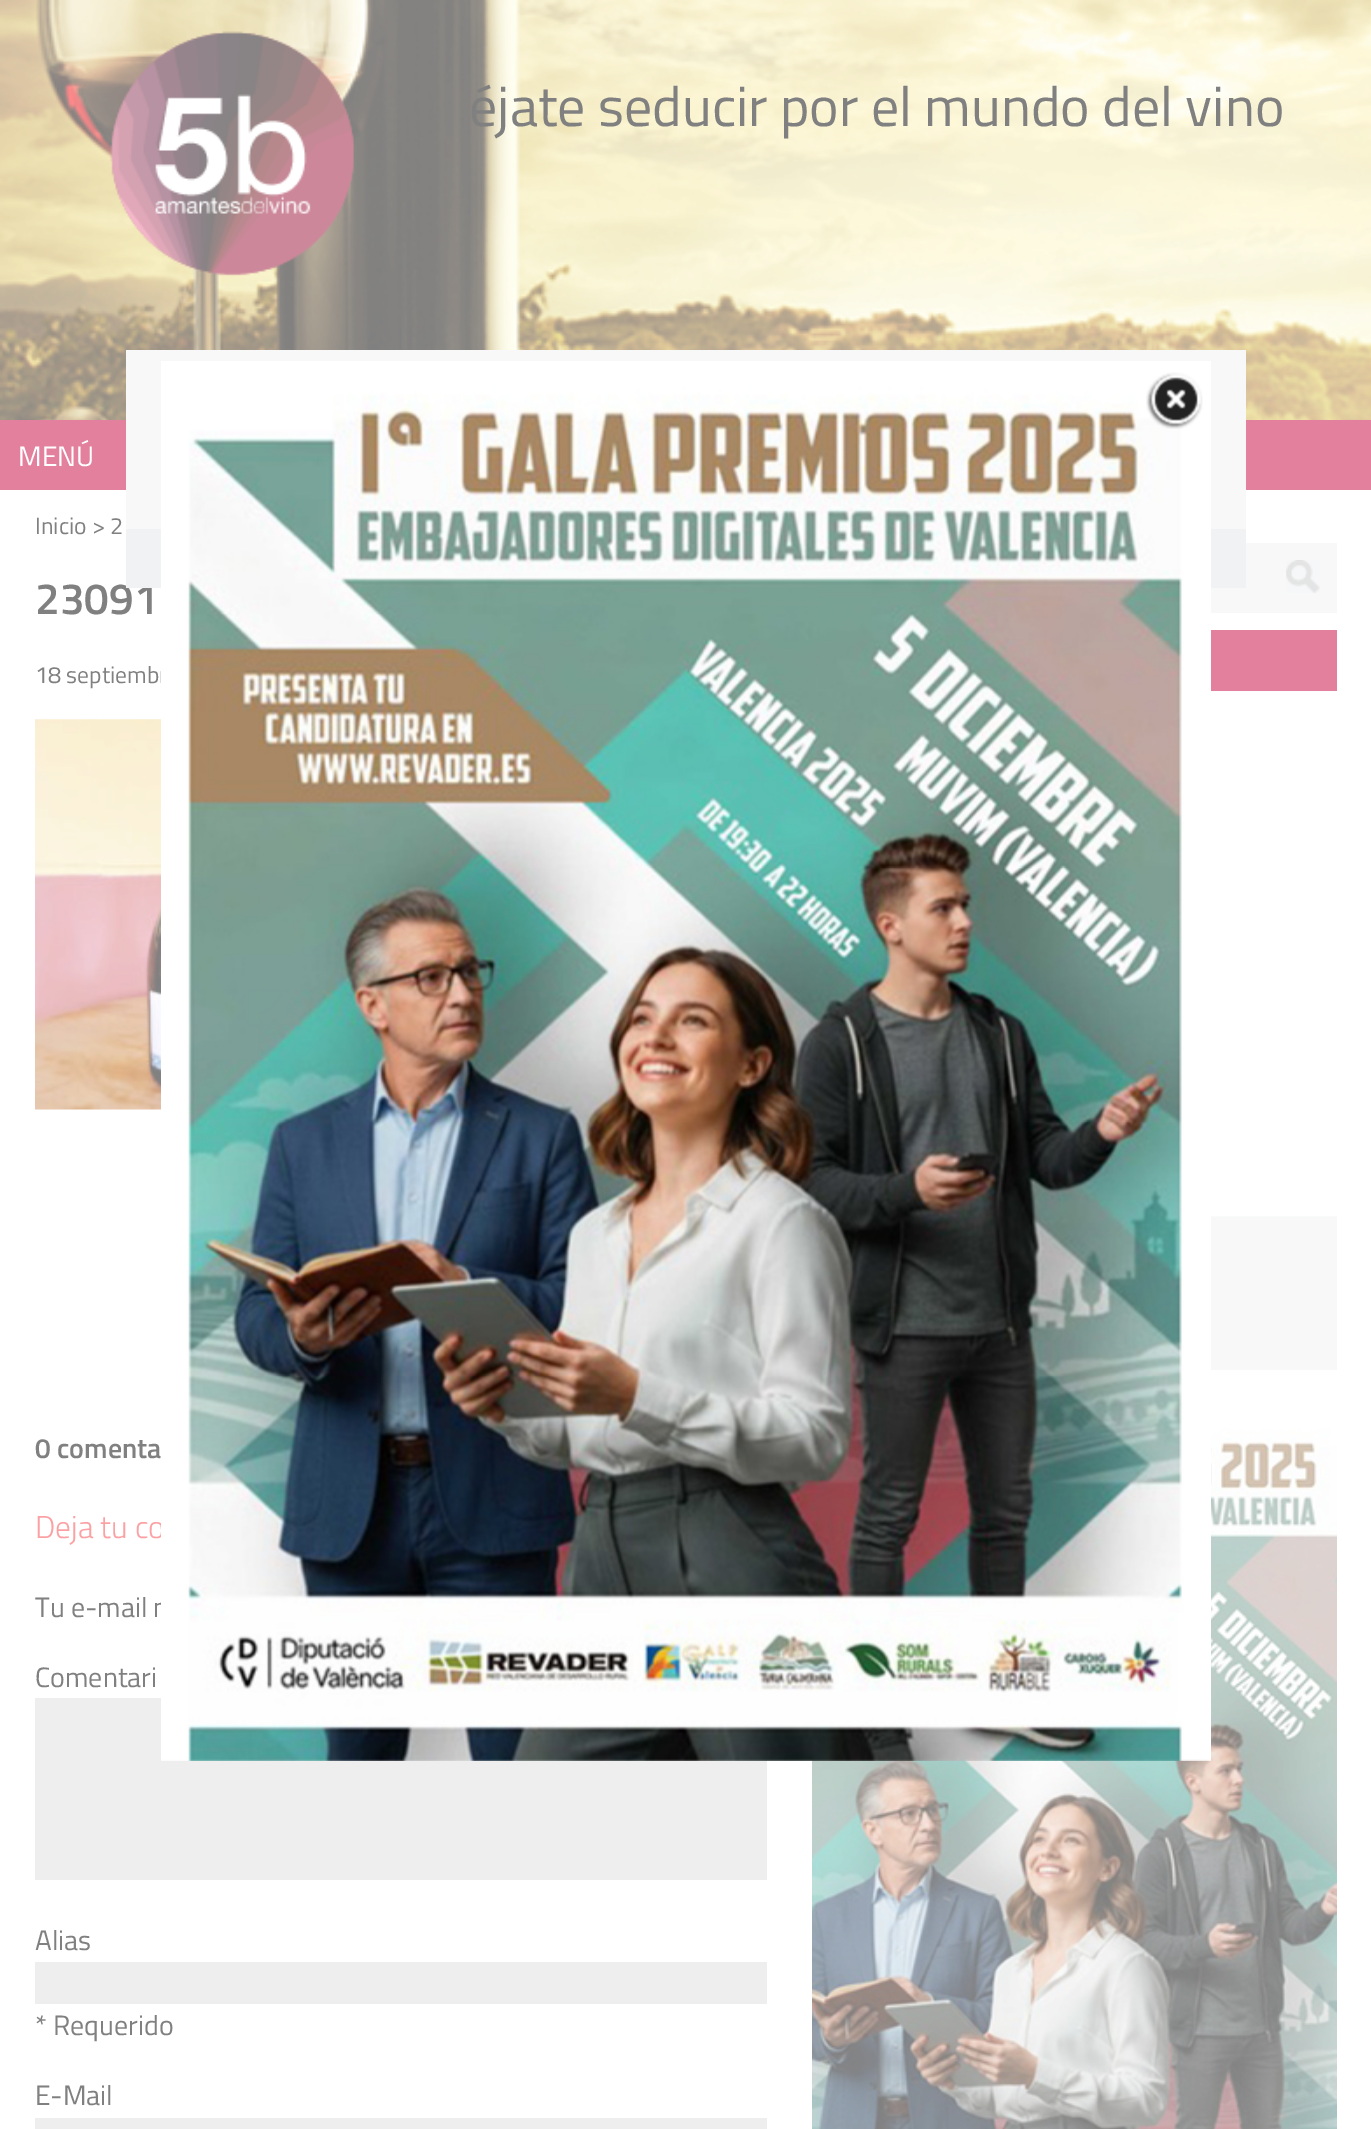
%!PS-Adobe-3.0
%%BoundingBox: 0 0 1371 2129
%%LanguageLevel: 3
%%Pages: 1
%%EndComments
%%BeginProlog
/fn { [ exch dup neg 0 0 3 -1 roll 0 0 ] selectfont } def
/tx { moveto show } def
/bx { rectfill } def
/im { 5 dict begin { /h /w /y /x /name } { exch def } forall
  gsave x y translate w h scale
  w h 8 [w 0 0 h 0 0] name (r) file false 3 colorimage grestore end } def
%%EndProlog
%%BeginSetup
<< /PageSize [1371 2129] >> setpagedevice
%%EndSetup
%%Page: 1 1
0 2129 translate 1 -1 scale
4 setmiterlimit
1 setgray
0 0 1371 2129 bx
(image0.raw) 0 0 1371 420 im
(image1.raw) 110 31 244 245 im
/TitilliumWeb-Regular 56 fn
0.502 setgray
(éjate seducir por el mundo del vino) 469 126 tx
0.886 0.502 0.62 setrgbcolor
0 420 1371 70 bx
/TitilliumWeb-Regular 28 fn
1 setgray
(MENÚ) 18 466 tx
0.973 0.973 0.976 setrgbcolor
126 350 1120 179 bx
/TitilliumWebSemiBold-SemiBold 44 fn
0.502 setgray
(23091) 35 614 tx
0.973 0.973 0.976 setrgbcolor
1211 543 126 70 bx
0.945 0.949 0.953 setrgbcolor
126 529 1120 59 bx
/TitilliumWeb-Regular 23.5 fn
0.502 setgray
(Inicio > 2) 35 534 tx
(18 septiembr) 35 683 tx
(image2.raw) 35 719 126 391 im
/TitilliumWebSemiBold-SemiBold 28 fn
(0 comenta) 35 1458 tx
/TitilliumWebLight-Light 31.5 fn
0.984 0.627 0.639 setrgbcolor
(Deja tu co) 35 1538 tx
/TitilliumWeb-Regular 28 fn
0.502 setgray
(Tu e-mail n) 35 1617 tx
(Comentari) 35 1687 tx
0.933 0.933 0.937 setrgbcolor
35 1698 732 182 bx
0.502 setgray
(Alias) 35 1950 tx
0.933 0.933 0.937 setrgbcolor
35 1962 732 42 bx
0.502 setgray
(* Requerido) 35 2035 tx
(E-Mail) 35 2105 tx
0.933 0.933 0.937 setrgbcolor
35 2118 732 11 bx
(image3.raw) 1286 560 34 34 im
0.973 0.973 0.976 setrgbcolor
1211 691 126 679 bx
0.886 0.502 0.62 setrgbcolor
1211 630 126 61 bx
(image4.raw) 1211 691 126 526 im
(image5.raw) 812 1428 525 701 im
(image6.raw) 161 361 1050 1400 im
(image7.raw) 1146 372 57 57 im
showpage
%%EOF
